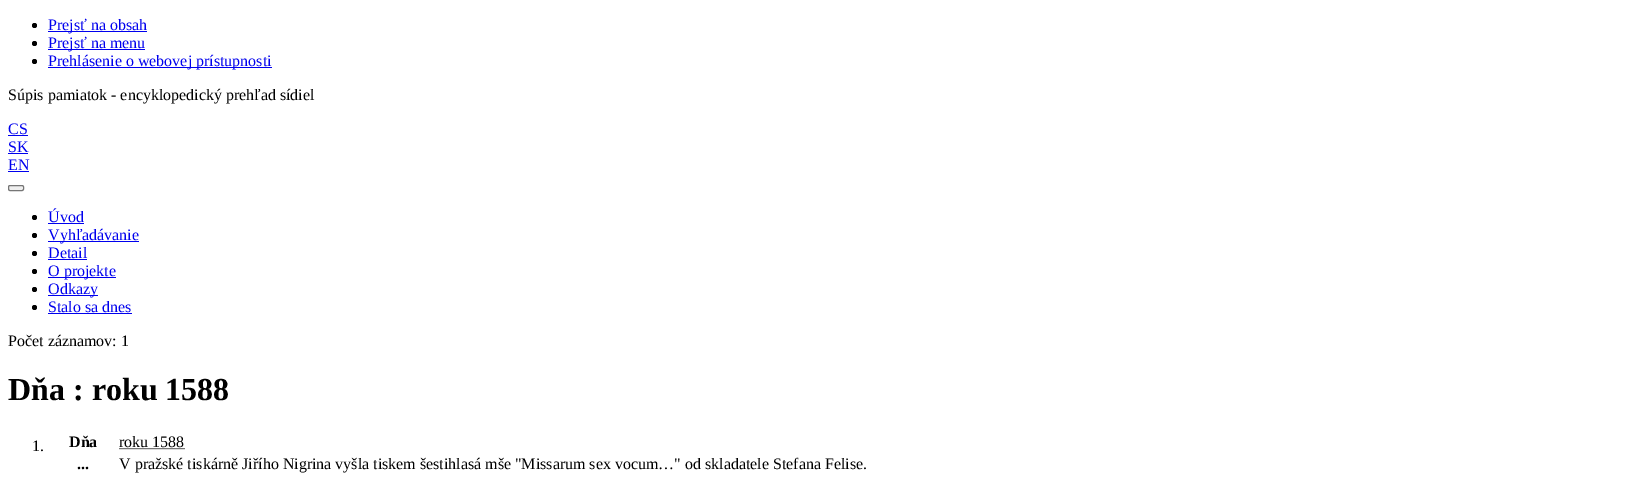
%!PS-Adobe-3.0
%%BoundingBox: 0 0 1648 477
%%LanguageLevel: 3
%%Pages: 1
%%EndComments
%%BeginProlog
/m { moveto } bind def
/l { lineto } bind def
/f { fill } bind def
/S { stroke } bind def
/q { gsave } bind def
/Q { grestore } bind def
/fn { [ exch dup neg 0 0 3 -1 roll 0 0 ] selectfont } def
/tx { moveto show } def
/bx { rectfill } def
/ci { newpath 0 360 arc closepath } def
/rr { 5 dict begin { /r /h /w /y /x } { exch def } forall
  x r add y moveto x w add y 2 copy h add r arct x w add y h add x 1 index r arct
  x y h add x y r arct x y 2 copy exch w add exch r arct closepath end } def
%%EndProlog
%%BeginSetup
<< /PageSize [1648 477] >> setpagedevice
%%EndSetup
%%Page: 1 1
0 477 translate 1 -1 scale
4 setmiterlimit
1 setgray
0 0 1648 477 bx
0 setgray
34.5 25.5 2.5 ci f
0 0 0.933 setrgbcolor
48 31 99 1 bx
/LiberationSerif-Regular 16 fn
(Prejsť na obsah) 48 30 tx
0 setgray
34.5 43.5 2.5 ci f
0 0 0.933 setrgbcolor
48 49 97 1 bx
(Prejsť na menu) 48 48 tx
0 setgray
34.5 61.5 2.5 ci f
0 0 0.933 setrgbcolor
48 67 224 1 bx
(Prehlásenie o webovej prístupnosti) 48 66 tx
0 setgray
(Súpis pamiatok - encyklopedický prehľad sídiel) 8 100 tx
0 0 0.933 setrgbcolor
(CS) 8 134 tx
8 135 20 1 bx
(SK) 8 152 tx
8 153 20 1 bx
(EN) 8 170 tx
8 171 21 1 bx
0.937 setgray
8.5 185.5 15 5 1.5 rr q f Q
0.463 setgray
S
0 setgray
34.5 217.5 2.5 ci f
0 0 0.933 setrgbcolor
(Úvod) 48 222 tx
48 223 36 1 bx
0 setgray
34.5 235.5 2.5 ci f
0 0 0.933 setrgbcolor
48 241 91 1 bx
(Vyhľadávanie) 48 240 tx
0 setgray
34.5 253.5 2.5 ci f
0 0 0.933 setrgbcolor
(Detail) 48 258 tx
48 259 39 1 bx
0 setgray
34.5 271.5 2.5 ci f
0 0 0.933 setrgbcolor
48 277 68 1 bx
(O projekte) 48 276 tx
0 setgray
34.5 289.5 2.5 ci f
0 0 0.933 setrgbcolor
48 295 50 1 bx
(Odkazy) 48 294 tx
0 setgray
34.5 307.5 2.5 ci f
0 0 0.933 setrgbcolor
(Stalo sa dnes) 48 312 tx
48 313 84 1 bx
0 setgray
(Počet záznamov: 1) 8 346 tx
/LiberationSerif-Bold 32 fn
(Dňa : roku 1588) 8 400 tx
/LiberationSerif-Regular 16 fn
(1.) 32 451 tx
/LiberationSerif-Bold 16 fn
(Dňa) 69 447 tx
/LiberationSerif-Regular 16 fn
(roku 1588) 119 447 tx
[1 1] 0 setdash
119.5 448.5 m 184.5 448.5 l S
/LiberationSerif-Bold 16 fn
(...) 77 469 tx
/LiberationSerif-Regular 16 fn
(V pražské tiskárně Jiřího Nigrina vyšla tiskem šestihlasá mše "Missarum sex vocum…" od skladatele Stefana Felise.) 119 469 tx
showpage
%%EOF
